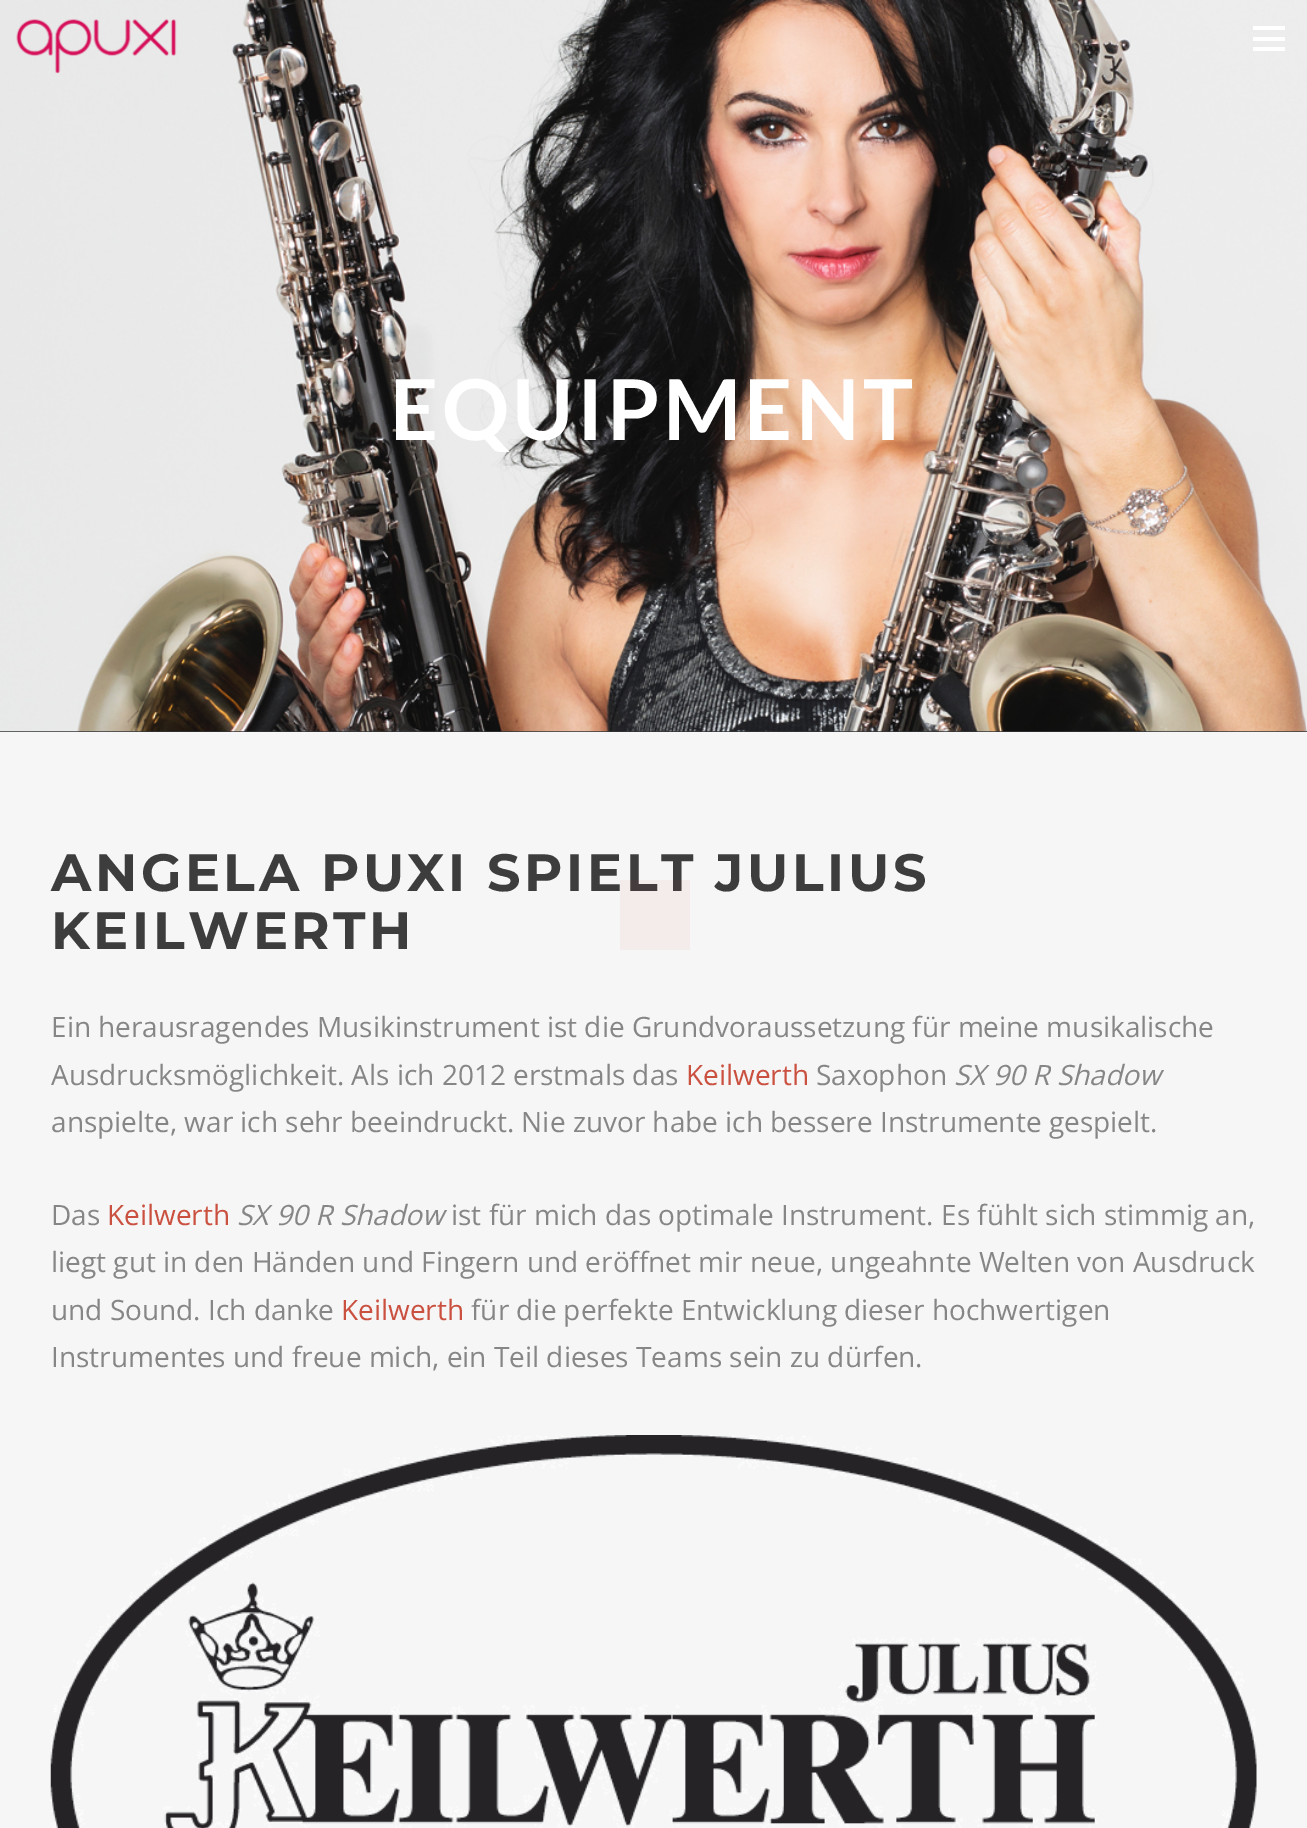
%!PS-Adobe-3.0
%%BoundingBox: 0 0 1307 1828
%%LanguageLevel: 3
%%Pages: 1
%%EndComments
%%BeginProlog
/m { moveto } bind def
/fn { [ exch dup neg 0 0 3 -1 roll 0 0 ] selectfont } def
/tx { moveto show } def
/bx { rectfill } def
/al { dup .setfillconstantalpha .setstrokeconstantalpha } def
/im { 5 dict begin { /h /w /y /x /name } { exch def } forall
  gsave x y translate w h scale
  w h 8 [w 0 0 h 0 0] name (r) file false 3 colorimage grestore end } def
%%EndProlog
%%BeginSetup
<< /PageSize [1307 1828] /PageUsesTransparency true >> setpagedevice
%%EndSetup
%%Page: 1 1
0 .pushpdf14devicefilter
0 1828 translate 1 -1 scale
4 setmiterlimit
0.2 0.212 0.22 setrgbcolor
0 0 1307 1828 bx
(image1.raw) 0 0 1307 732 im
(image0.raw) 16 19 161 55 im
1 setgray
1253 26 32 4 bx
1253 37 32 4 bx
1253 47 32 4 bx
/Lato-Bold 84 fn
390 440 m 3.5 0 (EQUIPMENT) ashow
0.965 setgray
0 732 1307 1096 bx
/Montserrat-Bold 52.5 fn
0.239 setgray
51 891 m 3.5 0 (ANGELA PUXI SPIELT JULIUS) ashow
51 949 m 3.5 0 (KEILWERTH) ashow
/OpenSans-Regular 28 fn
0.525 setgray
(Ein herausragendes Musikinstrument ist die Grundvoraussetzung für meine musikalische) 51 1037 tx
(Ausdrucksmöglichkeit. Als ich 2012 erstmals das) 51 1085 tx
0.792 0.314 0.247 setrgbcolor
(Keilwerth) 686 1085 tx
0.525 setgray
(Saxophon) 816 1085 tx
/OpenSans-Italic 28 fn
(SX 90 R Shadow) 954 1085 tx
/OpenSans-Regular 28 fn
(anspielte, war ich sehr beeindruckt. Nie zuvor habe ich bessere Instrumente gespielt.) 51 1132 tx
(Das) 51 1225 tx
0.792 0.314 0.247 setrgbcolor
(Keilwerth) 107 1225 tx
/OpenSans-Italic 28 fn
0.525 setgray
(SX 90 R Shadow) 237 1225 tx
/OpenSans-Regular 28 fn
(ist für mich das optimale Instrument. Es fühlt sich stimmig an,) 451 1225 tx
(liegt gut in den Händen und Fingern und eröffnet mir neue, ungeahnte Welten von Ausdruck) 51 1272 tx
(und Sound. Ich danke) 51 1320 tx
0.792 0.314 0.247 setrgbcolor
(Keilwerth) 341 1320 tx
0.525 setgray
(für die perfekte Entwicklung dieser hochwertigen) 471 1320 tx
(Instrumentes und freue mich, ein Teil dieses Teams sein zu dürfen.) 51 1367 tx
(image2.raw) 50 1435 1207 393 im
0.03 al
0.78 0.278 0.208 setrgbcolor
620 880 70 70 bx
620 880 70 70 bx
.poppdf14devicefilter showpage
%%EOF
